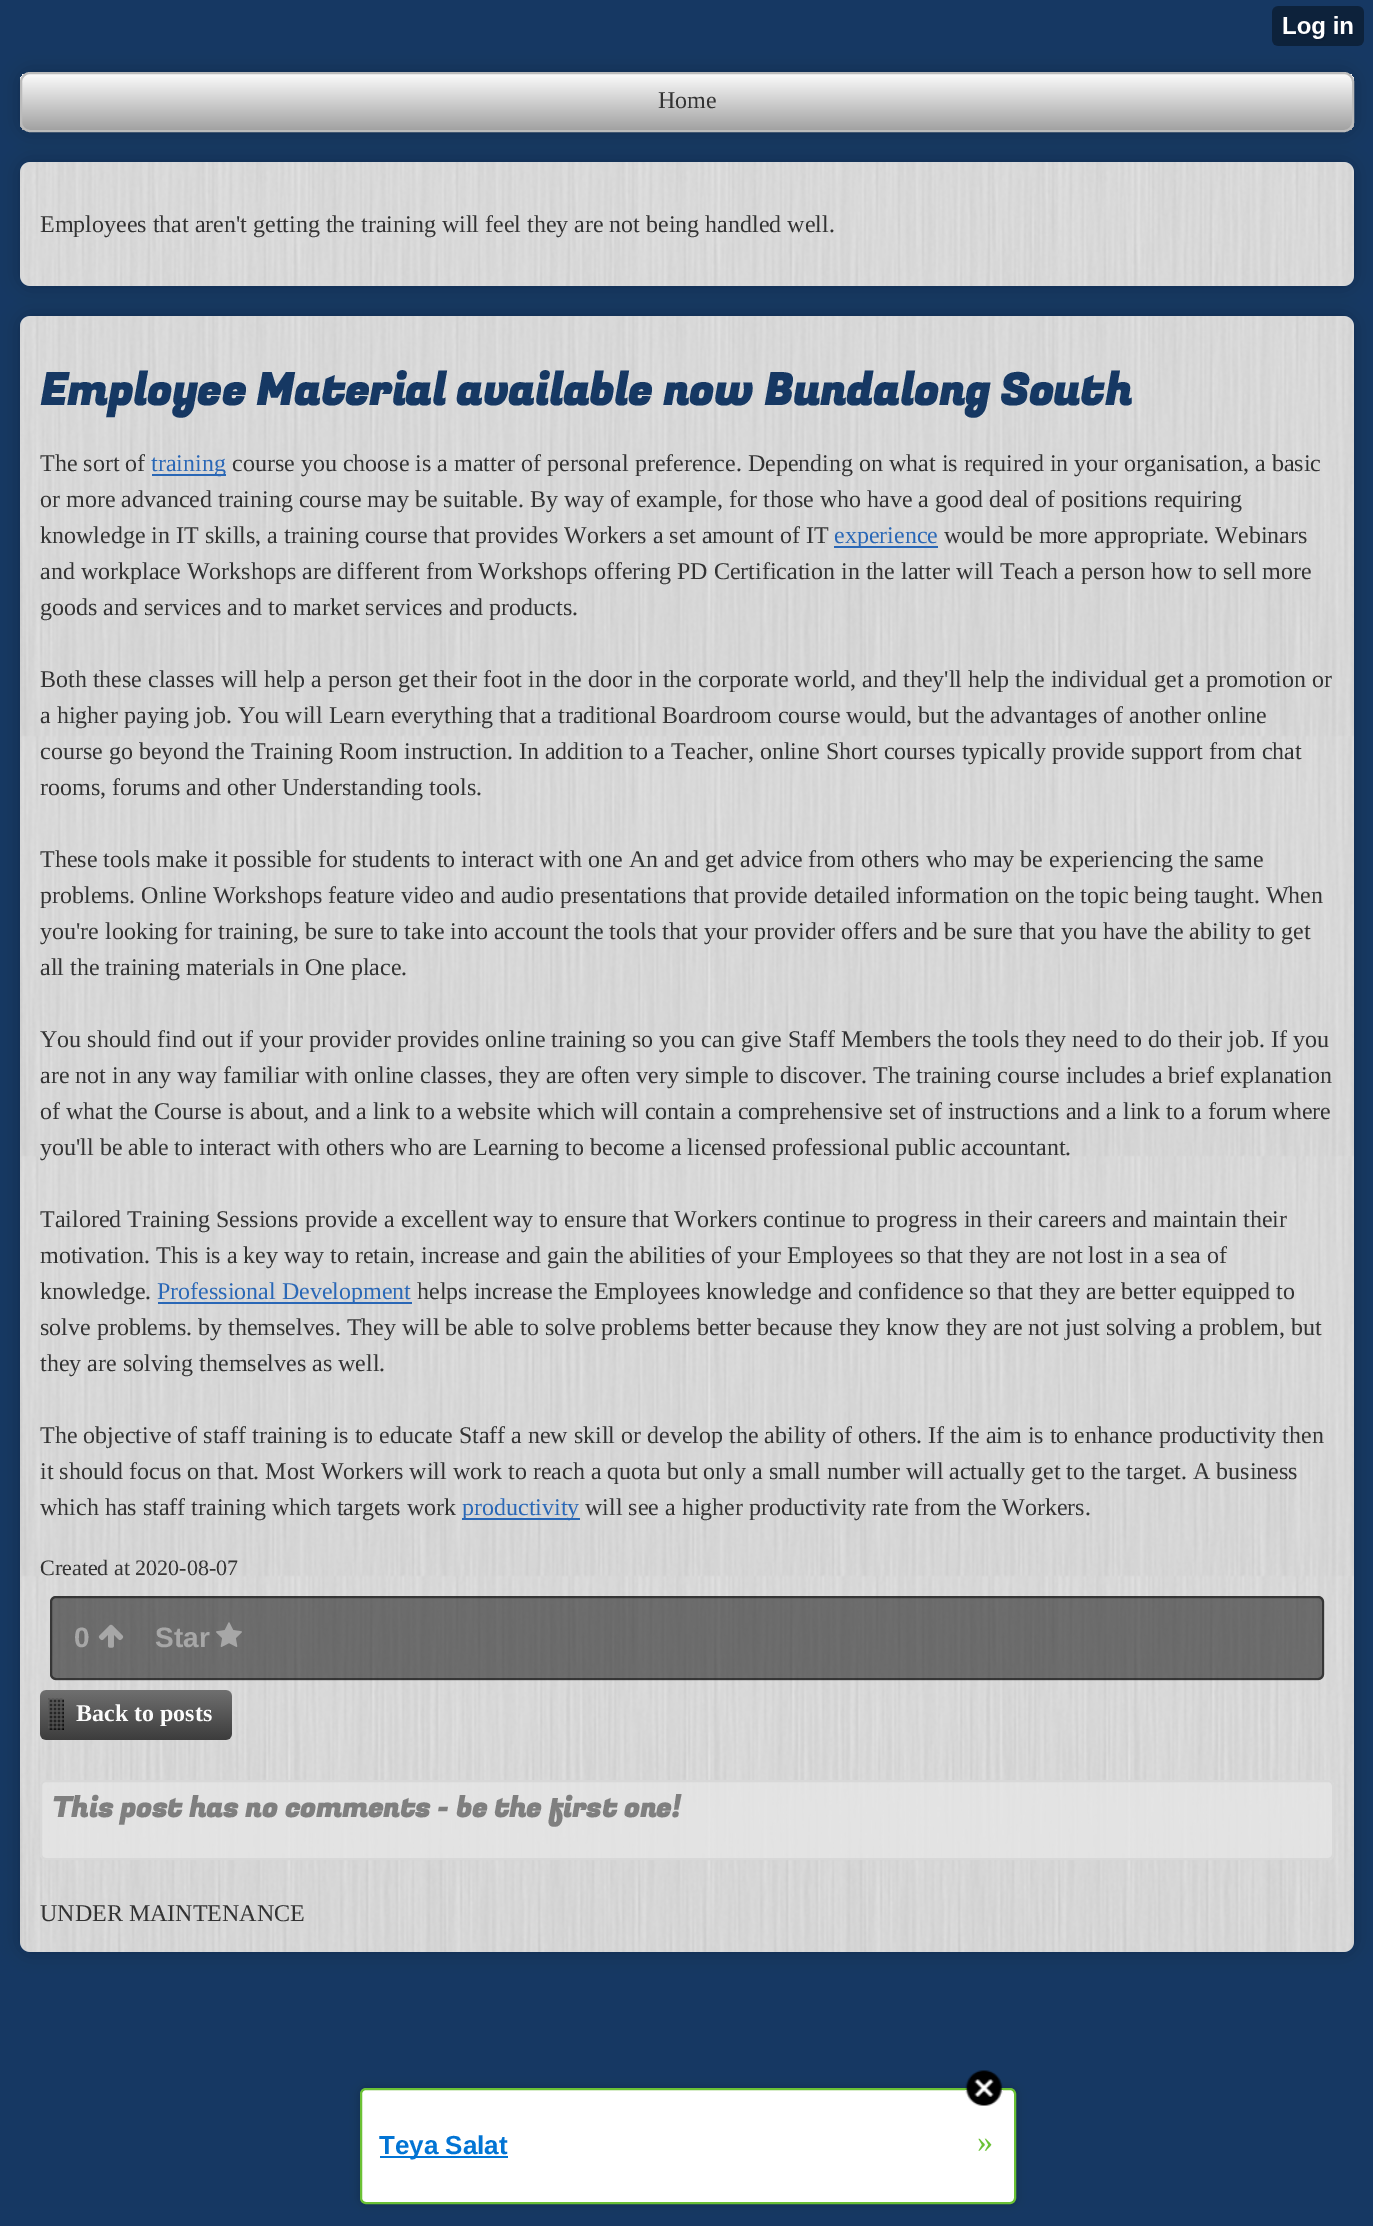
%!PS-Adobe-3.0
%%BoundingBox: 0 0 1373 2226
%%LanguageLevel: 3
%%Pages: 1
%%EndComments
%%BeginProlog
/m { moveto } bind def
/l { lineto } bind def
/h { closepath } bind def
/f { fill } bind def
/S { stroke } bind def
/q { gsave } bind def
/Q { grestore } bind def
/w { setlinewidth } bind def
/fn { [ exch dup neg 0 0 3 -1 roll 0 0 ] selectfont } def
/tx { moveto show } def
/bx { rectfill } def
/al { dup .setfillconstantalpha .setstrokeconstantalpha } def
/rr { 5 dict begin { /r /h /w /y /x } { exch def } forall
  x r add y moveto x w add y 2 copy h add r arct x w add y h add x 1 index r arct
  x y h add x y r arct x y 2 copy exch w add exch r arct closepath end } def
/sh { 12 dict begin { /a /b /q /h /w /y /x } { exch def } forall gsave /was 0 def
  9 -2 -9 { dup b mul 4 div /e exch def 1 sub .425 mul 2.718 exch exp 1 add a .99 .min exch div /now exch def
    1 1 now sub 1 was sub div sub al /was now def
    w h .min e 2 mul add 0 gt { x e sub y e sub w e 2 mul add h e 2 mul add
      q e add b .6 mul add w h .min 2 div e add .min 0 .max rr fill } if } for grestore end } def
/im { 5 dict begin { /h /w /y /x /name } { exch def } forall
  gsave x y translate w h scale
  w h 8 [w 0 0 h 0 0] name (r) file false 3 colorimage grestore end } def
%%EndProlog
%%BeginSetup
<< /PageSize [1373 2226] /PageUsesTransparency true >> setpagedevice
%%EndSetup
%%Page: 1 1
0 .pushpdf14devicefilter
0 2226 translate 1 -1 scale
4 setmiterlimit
0.086 0.22 0.388 setrgbcolor
0 0 1373 2226 bx
0.067 0.173 0.306 setrgbcolor
20 72 1334 60 10 10 1 sh
(image0.raw) 1272 6 92 40 im
q
20 72 1334 60 10 rr clip newpath
q 20 74 m 1354 74 l 1354 130 l 20 130 l h clip newpath
<< /ShadingType 2 /ColorSpace /DeviceRGB /Coords [687 74 687 130] /Extend [true true] /Function << /FunctionType 2 /Domain [0 1] /C0 [0.984 0.984 0.984] /C1 [0.635 0.635 0.635] /N 1 >> >> shfill Q
Q
0.733 setgray
2 w
21 73 1332 58 9 rr S
/LiberationSerif-Regular 24 fn
0.2 setgray
(Home) 658 108 tx
0.067 0.173 0.306 setrgbcolor
20 162 1334 124 10 10 1 sh
0.933 setgray
20 162 1334 124 10 rr f
(image1.raw) 20 162 1334 124 im
0.2 setgray
(Employees that aren't getting the training will feel they are not being handled well.) 40 232 tx
0.067 0.173 0.306 setrgbcolor
20 316 1334 1636 10 10 1 sh
0.933 setgray
20 316 1334 1636 10 rr f
(image2.raw) 20 316 1334 1636 im
/FugazOne-Bold 44 fn
0.086 0.22 0.388 setrgbcolor
(Employee Material available now Bundalong South) 40 405 tx
/LiberationSerif-Regular 24 fn
0.2 setgray
(The sort of) 40 471 tx
0.161 0.404 0.714 setrgbcolor
152 474 74 2 bx
(training) 151 471 tx
0.2 setgray
(course you choose is a matter of personal preference. Depending on what is required in your organisation, a basic) 232 471 tx
(or more advanced training course may be suitable. By way of example, for those who have a good deal of positions requiring) 40 507 tx
(knowledge in IT skills, a training course that provides Workers a set amount of IT) 40 543 tx
0.161 0.404 0.714 setrgbcolor
834 546 104 2 bx
(experience) 834 543 tx
0.2 setgray
(would be more appropriate. Webinars) 944 543 tx
(and workplace Workshops are different from Workshops offering PD Certification in the latter will Teach a person how to sell more) 40 579 tx
(goods and services and to market services and products.) 40 615 tx
(Both these classes will help a person get their foot in the door in the corporate world, and they'll help the individual get a promotion or) 40 687 tx
(a higher paying job. You will Learn everything that a traditional Boardroom course would, but the advantages of another online) 40 723 tx
(course go beyond the Training Room instruction. In addition to a Teacher, online Short courses typically provide support from chat) 40 759 tx
(rooms, forums and other Understanding tools.) 40 795 tx
(These tools make it possible for students to interact with one An and get advice from others who may be experiencing the same) 40 867 tx
(problems. Online Workshops feature video and audio presentations that provide detailed information on the topic being taught. When) 40 903 tx
(you're looking for training, be sure to take into account the tools that your provider offers and be sure that you have the ability to get) 40 939 tx
(all the training materials in One place.) 40 975 tx
(You should find out if your provider provides online training so you can give Staff Members the tools they need to do their job. If you) 40 1047 tx
(are not in any way familiar with online classes, they are often very simple to discover. The training course includes a brief explanation) 40 1083 tx
(of what the Course is about, and a link to a website which will contain a comprehensive set of instructions and a link to a forum where) 40 1119 tx
(you'll be able to interact with others who are Learning to become a licensed professional public accountant.) 40 1155 tx
(Tailored Training Sessions provide a excellent way to ensure that Workers continue to progress in their careers and maintain their) 40 1227 tx
(motivation. This is a key way to retain, increase and gain the abilities of your Employees so that they are not lost in a sea of) 40 1263 tx
(knowledge.) 40 1299 tx
0.161 0.404 0.714 setrgbcolor
158 1302 254 2 bx
(Professional Development) 157 1299 tx
0.2 setgray
(helps increase the Employees knowledge and confidence so that they are better equipped to) 417 1299 tx
(solve problems. by themselves. They will be able to solve problems better because they know they are not just solving a problem, but) 40 1335 tx
(they are solving themselves as well.) 40 1371 tx
(The objective of staff training is to educate Staff a new skill or develop the ability of others. If the aim is to enhance productivity then) 40 1443 tx
(it should focus on that. Most Workers will work to reach a quota but only a small number will actually get to the target. A business) 40 1479 tx
(which has staff training which targets work) 40 1515 tx
0.161 0.404 0.714 setrgbcolor
462 1518 118 2 bx
(productivity) 462 1515 tx
0.2 setgray
(will see a higher productivity rate from the Workers.) 585 1515 tx
/LiberationSerif-Regular 22 fn
(Created at 2020-08-07) 40 1575 tx
0.5 al
0 setgray
50 1596 1274 84 6 rr f
51 1597 1272 82 5 rr S
/LiberationSans-Bold 28 fn
1 al
0.655 setgray
(0) 74 1647 tx
(image3.raw) 98 1624 26 24 im
(Star) 155 1647 tx
(image4.raw) 216 1622 26 25 im
(image5.raw) 40 1690 192 50 im
/LiberationSerif-Bold 24 fn
0.984 setgray
(Back to posts) 76 1721 tx
0.8 al
0.902 setgray
40 1780 1294 80 6 rr f
0.835 setgray
41 1781 1292 78 5 rr S
/FugazOne-Bold 28 fn
1 al
0.498 setgray
(This post has no comments - be the first one!) 52 1817 tx
/LiberationSerif-Regular 24 fn
0.2 setgray
(UNDER MAINTENANCE) 40 1921 tx
0 setgray
360 2088 656 116 6 5 0.2 sh
1 setgray
361 2089 654 114 5 rr q f Q
0.42 0.757 0.208 setrgbcolor
S
(image6.raw) 965 2070 38 36 im
0.008 0.455 0.831 setrgbcolor
380 2156 128 2 bx
/LiberationSans-Bold 26 fn
(Teya Salat) 379 2154 tx
/LiberationSerif-Regular 32 fn
0.42 0.757 0.208 setrgbcolor
(») 977 2152 tx
.poppdf14devicefilter showpage
%%EOF
